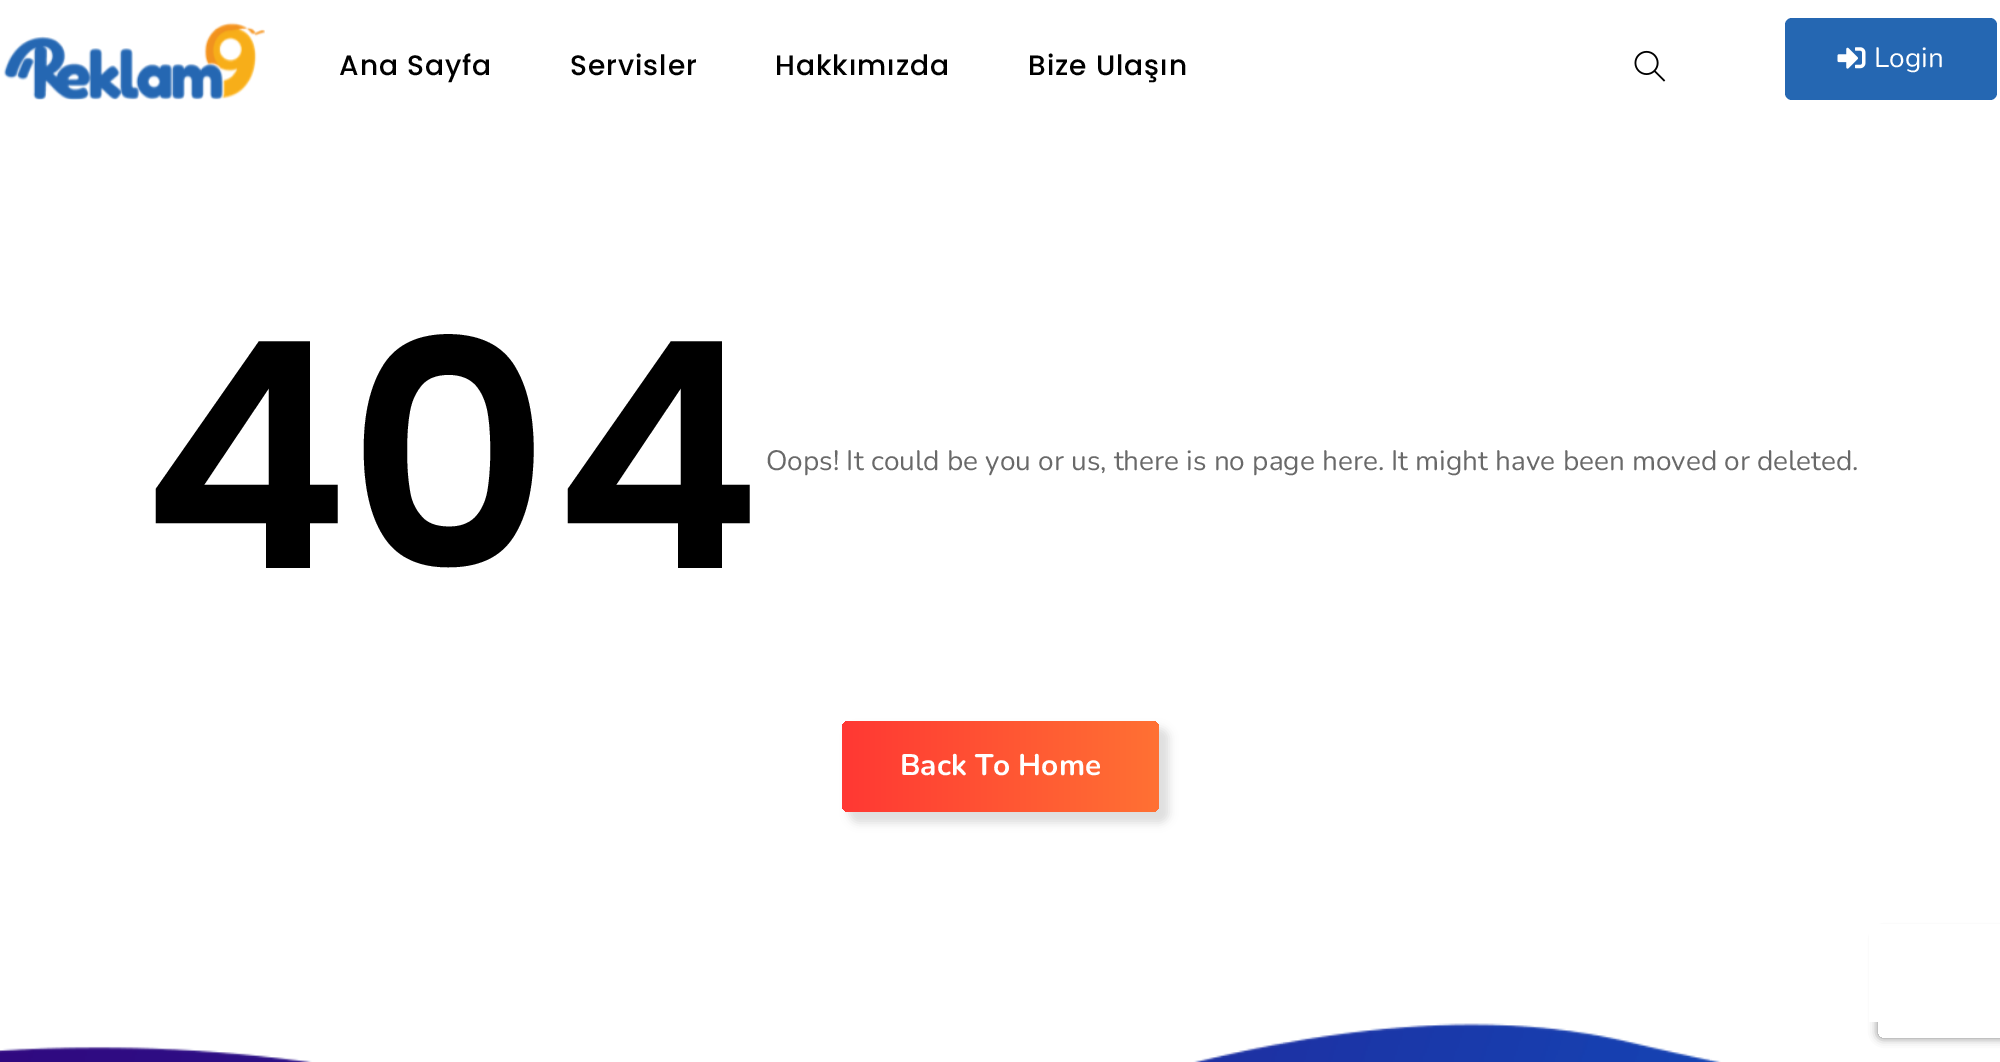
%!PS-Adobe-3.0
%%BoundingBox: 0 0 2000 1062
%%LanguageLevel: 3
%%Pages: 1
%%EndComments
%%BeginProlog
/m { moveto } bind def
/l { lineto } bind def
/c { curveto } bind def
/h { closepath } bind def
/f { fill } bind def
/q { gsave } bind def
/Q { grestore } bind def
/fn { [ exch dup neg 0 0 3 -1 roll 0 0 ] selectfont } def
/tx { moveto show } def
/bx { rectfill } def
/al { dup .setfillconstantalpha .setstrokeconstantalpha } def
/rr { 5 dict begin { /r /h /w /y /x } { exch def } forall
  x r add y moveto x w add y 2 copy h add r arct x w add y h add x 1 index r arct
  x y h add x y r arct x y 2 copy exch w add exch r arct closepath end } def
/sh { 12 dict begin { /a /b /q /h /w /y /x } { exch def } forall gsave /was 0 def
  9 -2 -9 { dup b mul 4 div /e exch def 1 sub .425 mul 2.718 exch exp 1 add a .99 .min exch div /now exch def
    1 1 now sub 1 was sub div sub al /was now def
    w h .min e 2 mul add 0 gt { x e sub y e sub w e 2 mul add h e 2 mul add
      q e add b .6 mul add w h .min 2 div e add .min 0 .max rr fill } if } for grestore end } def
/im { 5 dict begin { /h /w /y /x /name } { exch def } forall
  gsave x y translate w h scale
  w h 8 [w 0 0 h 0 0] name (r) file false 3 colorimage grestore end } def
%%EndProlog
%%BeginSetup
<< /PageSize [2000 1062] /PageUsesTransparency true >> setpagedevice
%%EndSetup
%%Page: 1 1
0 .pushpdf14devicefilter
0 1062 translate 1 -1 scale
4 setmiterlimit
1 setgray
0 0 2000 1062 bx
(image0.raw) 3 22 262 78 im
/Poppins-Medium 28 fn
0 setgray
339 75 m 1 0 (Ana Sayfa) ashow
570 75 m 1 0 (Servisler) ashow
775 75 m 1 0 (Hakkımızda) ashow
1028 75 m 1 0 (Bize Ulaşın) ashow
(image1.raw) 1634 50 32 32 im
0.145 0.404 0.698 setrgbcolor
1785 18 212 82 7 rr f
(image2.raw) 1837 47 29 22 im
/Nunito-Regular 28 fn
1 setgray
(Login) 1874 67 tx
q
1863 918 m 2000 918 l 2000 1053 l 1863 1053 l h 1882 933 m 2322 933 l 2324 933 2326 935 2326 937 c 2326 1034 l 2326 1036 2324 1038 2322 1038 c 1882 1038 l 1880 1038 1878 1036 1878 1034 c 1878 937 l 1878 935 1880 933 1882 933 c h eoclip newpath
0.502 setgray
1878 933 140 105 4 4.5 1 sh
Q
1869 924 131 98 bx
/Poppins-SemiBold 315 fn
0 setgray
141 568 m 4 0 (4) ashow
347 568 m 4 0 (0) ashow
553 568 m 4 0 (4) ashow
/Nunito-Regular 28 fn
0.412 setgray
(Oops! It could be you or us, there is no page here. It might have been moved or deleted.) 766 470 tx
0.867 setgray
849 728 320 95 9 4.5 1 sh
q 842 721 317 91 7 rr clip newpath
<< /ShadingType 2 /ColorSpace /DeviceRGB /Coords [842 767 1159 767] /Extend [true true] /Function << /FunctionType 2 /Domain [0 1] /C0 [1 0.22 0.204] /C1 [1 0.443 0.2] /N 1 >> >> shfill Q
/Nunito-Bold 29.75 fn
1 setgray
(Back To Home) 900 775 tx
(image3.raw) 0 1023 1721 39 im
.poppdf14devicefilter showpage
%%EOF
